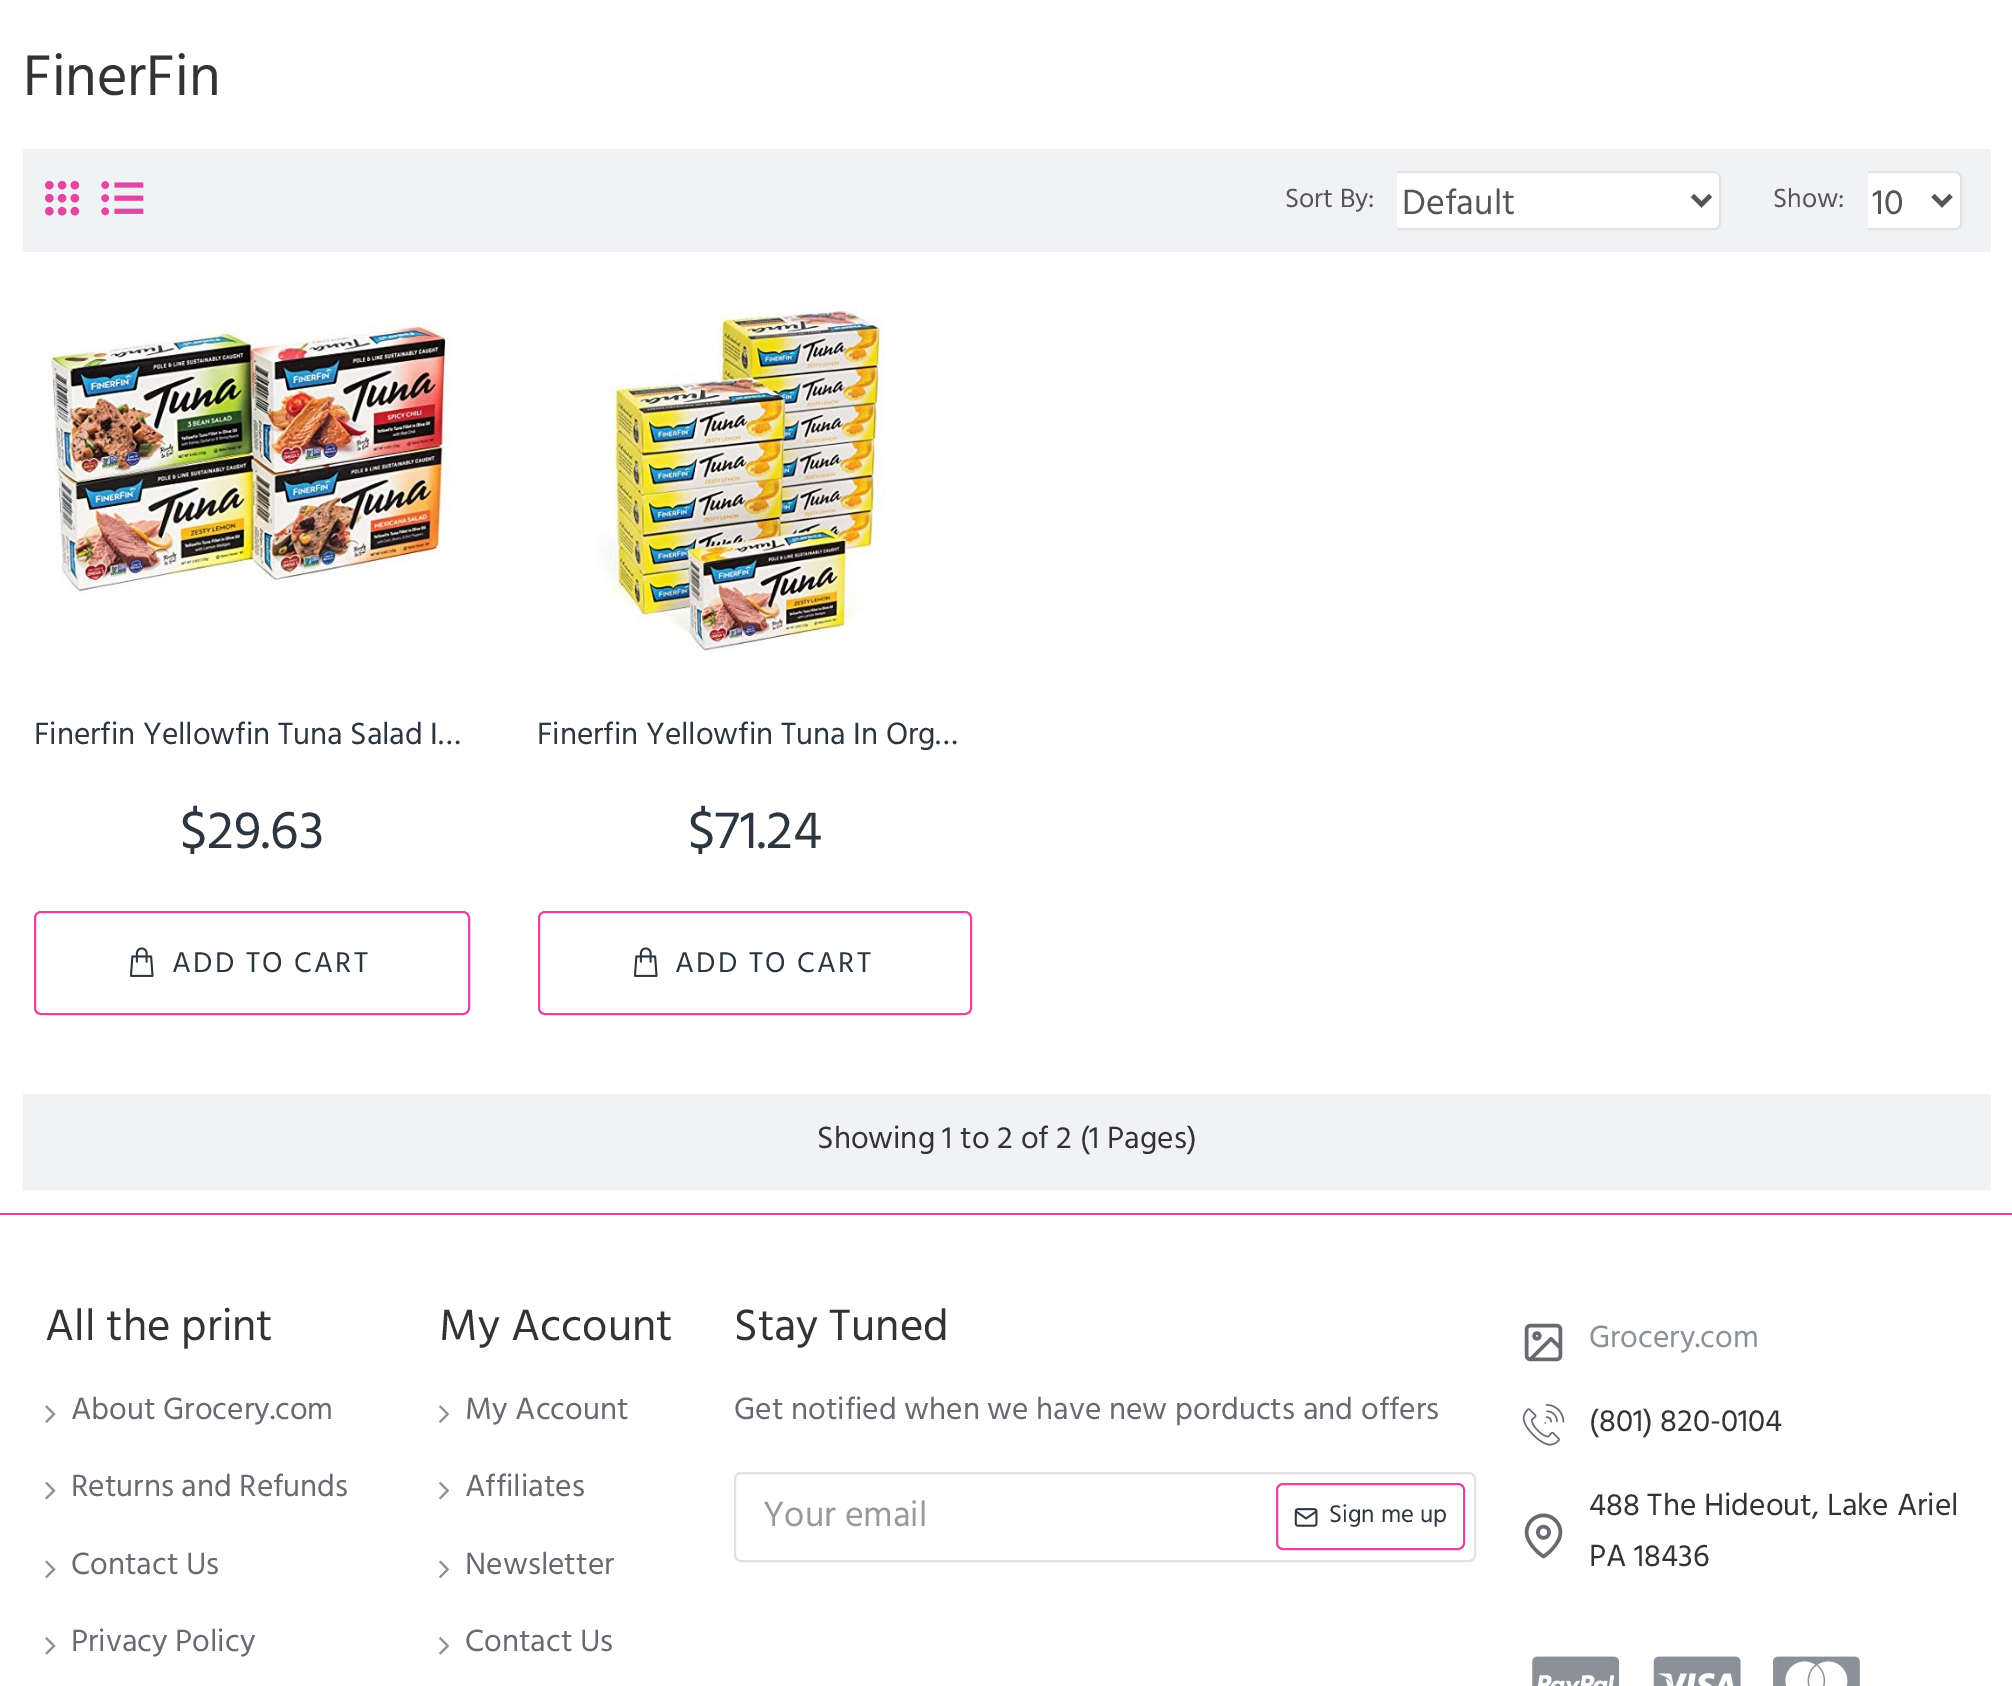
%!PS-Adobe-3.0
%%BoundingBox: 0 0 2012 1686
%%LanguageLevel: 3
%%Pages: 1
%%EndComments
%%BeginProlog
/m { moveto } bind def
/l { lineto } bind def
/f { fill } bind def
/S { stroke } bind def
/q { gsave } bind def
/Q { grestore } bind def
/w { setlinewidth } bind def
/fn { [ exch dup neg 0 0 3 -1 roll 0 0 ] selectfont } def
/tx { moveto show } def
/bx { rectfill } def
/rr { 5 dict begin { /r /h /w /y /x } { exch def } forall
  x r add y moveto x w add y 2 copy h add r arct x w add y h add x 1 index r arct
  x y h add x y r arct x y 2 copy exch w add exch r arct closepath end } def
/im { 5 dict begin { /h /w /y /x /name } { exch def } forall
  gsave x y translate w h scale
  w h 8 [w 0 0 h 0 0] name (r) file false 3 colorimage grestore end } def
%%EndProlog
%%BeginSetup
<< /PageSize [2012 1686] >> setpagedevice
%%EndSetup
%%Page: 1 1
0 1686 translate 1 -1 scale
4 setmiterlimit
1 setgray
0 0 2012 1686 bx
/Hind-Regular 58.5 fn
0.2 setgray
(FinerFin) 23 95 tx
0.941 0.949 0.961 setrgbcolor
23 149 1968 103 bx
(image0.raw) 45 180 35 36 im
(image1.raw) 101 181 43 35 im
1 setgray
1392 172 328 57 6 rr q f Q
0.886 setgray
2 w
S
0.941 0.949 0.961 setrgbcolor
1391 171 6 59 bx
/Hind-Regular 27 fn
0.333 setgray
(Sort By:) 1285 207 tx
4.5 w
1692.5 195.5 m 1701.5 204.5 l 1710.5 195.5 l S
/Hind-Regular 36 fn
(Default) 1402 214 tx
1 setgray
1862 172 99 57 6 rr q f Q
0.886 setgray
2 w
S
0.941 0.949 0.961 setrgbcolor
1861 171 7 59 bx
/Hind-Regular 27 fn
0.333 setgray
(Show:) 1773 207 tx
4.5 w
1933 195.5 m 1942 204.5 l 1951 195.5 l S
/Hind-Regular 36 fn
(10) 1872 214 tx
(image2.raw) 47 319 406 275 im
/Hind-Regular 31.5 fn
0.173 0.212 0.251 setrgbcolor
(Finerfin Yellowfin Tuna Salad I…) 34 744 tx
/Hind-Regular 54 fn
($29.63) 180 848 tx
0.89 0.271 0.639 setrgbcolor
2 w
35 912 434 102 6 rr S
(image3.raw) 129 947 25 30 im
/Hind-Regular 29.25 fn
0.173 0.212 0.251 setrgbcolor
172 972 m 2.25 0 (ADD TO CART) ashow
(image4.raw) 598 305 287 347 im
/Hind-Regular 31.5 fn
(Finerfin Yellowfin Tuna In Org…) 537 744 tx
/Hind-Regular 54 fn
($71.24) 688 848 tx
0.89 0.271 0.639 setrgbcolor
539 912 432 102 6 rr S
(image3.raw) 633 947 25 30 im
/Hind-Regular 29.25 fn
0.173 0.212 0.251 setrgbcolor
675 972 m 2.25 0 (ADD TO CART) ashow
0.941 0.949 0.961 setrgbcolor
23 1094 1968 96 bx
/Hind-Regular 31.5 fn
0.2 setgray
(Showing 1 to 2 of 2 \(1 Pages\)) 817 1148 tx
0.89 0.271 0.639 setrgbcolor
0 1213 2012 2 bx
/Hind-Regular 45 fn
0.2 setgray
(All the print) 45 1340 tx
(image5.raw) 45 1405 11 18 im
/Hind-Regular 31.5 fn
0.412 0.412 0.451 setrgbcolor
(About Grocery.com) 71 1419 tx
(image6.raw) 45 1481 11 19 im
(Returns and Refunds) 71 1496 tx
(image7.raw) 45 1560 11 19 im
(Contact Us) 71 1574 tx
(image8.raw) 45 1637 11 18 im
(Privacy Policy) 71 1651 tx
/Hind-Regular 45 fn
0.2 setgray
(My Account) 439 1340 tx
(image9.raw) 439 1405 11 18 im
/Hind-Regular 31.5 fn
0.412 0.412 0.451 setrgbcolor
(My Account) 465 1419 tx
(image10.raw) 439 1481 11 19 im
(Affiliates) 465 1496 tx
(image11.raw) 439 1560 11 19 im
(Newsletter) 465 1574 tx
(image12.raw) 439 1637 11 18 im
(Contact Us) 465 1651 tx
/Hind-Regular 45 fn
0.2 setgray
(Stay Tuned) 734 1340 tx
/Hind-Regular 31.5 fn
0.412 0.412 0.451 setrgbcolor
(Get notified when we have new porducts and offers) 734 1419 tx
0.886 setgray
735 1473 740 88 6 rr S
/Hind-Regular 36 fn
0.6 setgray
(Your email) 763 1526 tx
0.89 0.271 0.639 setrgbcolor
1277 1484 187 65 6 rr S
(image13.raw) 1294 1508 24 19 im
/Hind-Regular 24.75 fn
0.173 0.212 0.251 setrgbcolor
(Sign me up) 1329 1522 tx
(image14.raw) 1524 1323 39 39 im
/Hind-Regular 31.5 fn
0.545 0.569 0.596 setrgbcolor
(Grocery.com) 1589 1347 tx
(image15.raw) 1522 1404 43 42 im
0.2 setgray
(\(801\) 820-0104) 1589 1431 tx
(image16.raw) 1524 1513 39 46 im
(488 The Hideout, Lake Ariel) 1589 1515 tx
(PA 18436) 1589 1566 tx
(image17.raw) 1532 1656 88 30 im
(image18.raw) 1653 1656 88 30 im
(image19.raw) 1773 1656 87 30 im
showpage
%%EOF
